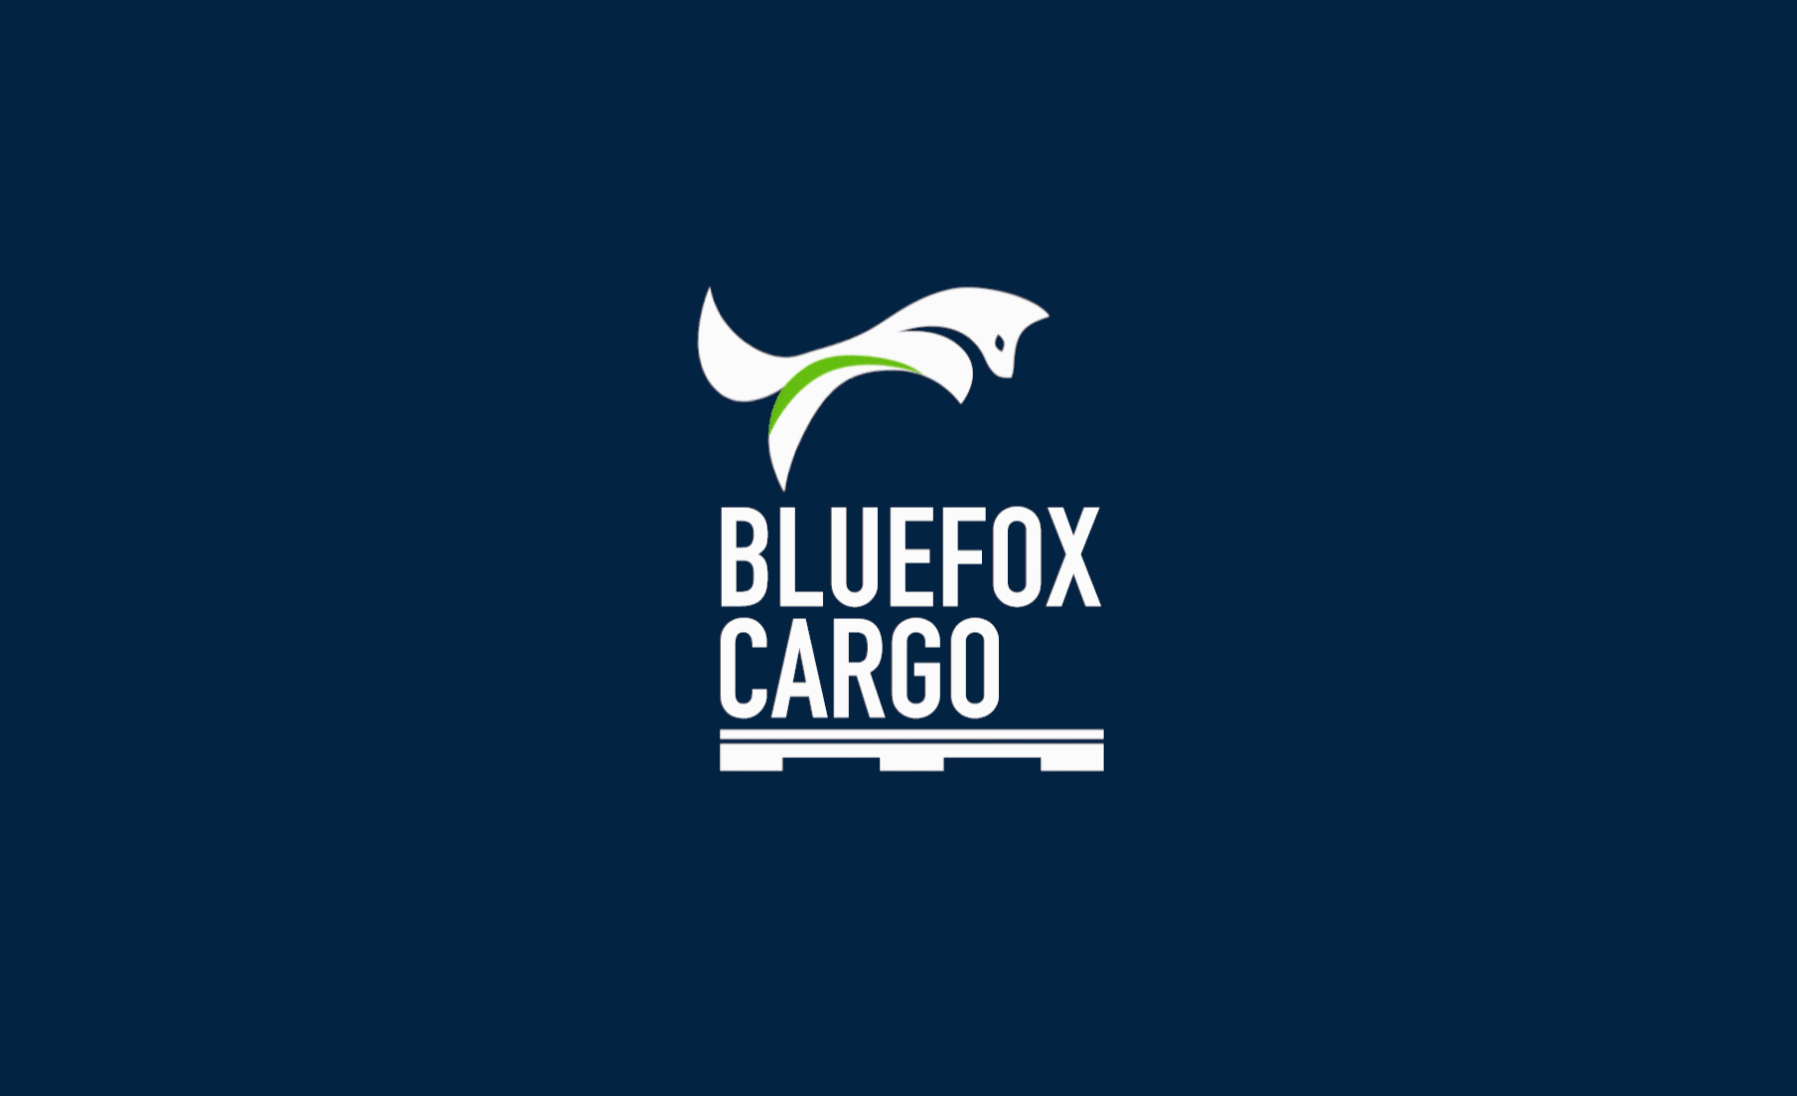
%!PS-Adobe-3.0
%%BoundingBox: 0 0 1797 1096
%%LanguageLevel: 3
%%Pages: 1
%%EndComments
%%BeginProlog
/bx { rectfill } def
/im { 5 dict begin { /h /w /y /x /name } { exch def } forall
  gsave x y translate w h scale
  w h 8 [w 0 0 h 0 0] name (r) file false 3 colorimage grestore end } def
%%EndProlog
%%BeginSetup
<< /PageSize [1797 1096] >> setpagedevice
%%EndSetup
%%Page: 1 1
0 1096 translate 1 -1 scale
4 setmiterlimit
0.012 0.137 0.263 setrgbcolor
0 0 1797 1096 bx
(image0.raw) 696 285 408 487 im
showpage
%%EOF
